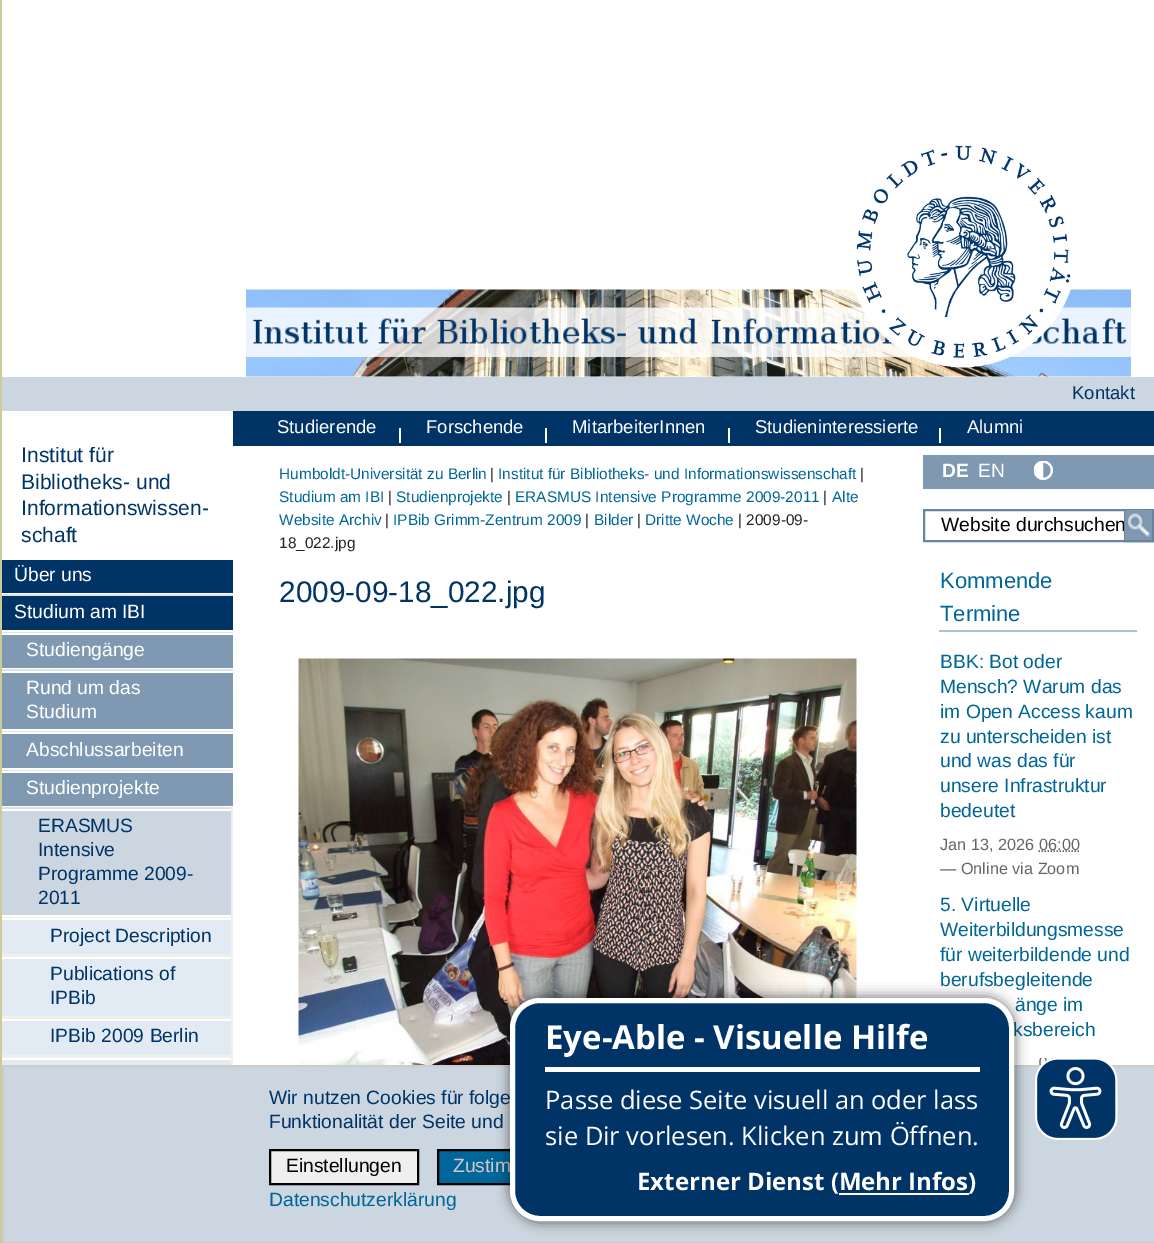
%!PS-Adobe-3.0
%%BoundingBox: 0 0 1154 1243
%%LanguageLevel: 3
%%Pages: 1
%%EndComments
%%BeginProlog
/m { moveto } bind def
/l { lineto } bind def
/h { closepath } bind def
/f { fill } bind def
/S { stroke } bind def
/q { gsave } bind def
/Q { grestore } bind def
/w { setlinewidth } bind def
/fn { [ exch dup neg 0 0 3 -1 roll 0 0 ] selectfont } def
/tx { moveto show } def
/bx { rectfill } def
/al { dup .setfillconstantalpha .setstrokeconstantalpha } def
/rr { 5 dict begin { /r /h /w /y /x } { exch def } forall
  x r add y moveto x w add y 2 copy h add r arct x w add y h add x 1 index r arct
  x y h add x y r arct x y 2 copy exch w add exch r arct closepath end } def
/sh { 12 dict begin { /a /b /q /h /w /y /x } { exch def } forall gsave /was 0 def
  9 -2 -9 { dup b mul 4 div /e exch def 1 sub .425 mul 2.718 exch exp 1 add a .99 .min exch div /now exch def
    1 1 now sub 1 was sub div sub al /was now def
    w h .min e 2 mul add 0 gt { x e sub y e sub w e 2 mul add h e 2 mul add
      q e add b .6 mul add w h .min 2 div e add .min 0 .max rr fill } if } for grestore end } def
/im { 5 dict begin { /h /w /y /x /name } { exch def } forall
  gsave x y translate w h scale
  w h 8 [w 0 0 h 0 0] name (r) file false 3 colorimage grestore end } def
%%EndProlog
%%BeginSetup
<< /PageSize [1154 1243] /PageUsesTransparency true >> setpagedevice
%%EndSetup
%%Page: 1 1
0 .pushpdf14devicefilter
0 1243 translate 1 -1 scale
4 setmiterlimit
1 setgray
0 0 1154 1243 bx
(image1.raw) 246 289 885 88 im
(image2.raw) 246 307 885 50 im
(image0.raw) 854 145 217 223 im
0.8 0.8 0.6 setrgbcolor
0 0 2 1243 bx
q
2 447 231 113 rectclip
/LiberationSans-Regular 21.1 fn
0 0.2 0.4 setrgbcolor
(Institut für) 21 462 tx
Q
/LiberationSans-Regular 21.1 fn
0 0.2 0.4 setrgbcolor
(Bibliotheks- und) 21 489 tx
(Informationswissen-) 21 515 tx
(schaft) 21 542 tx
2 560 231 33 bx
/LiberationSans-Regular 19.25 fn
1 setgray
(Über uns) 14 581 tx
0 0.2 0.4 setrgbcolor
2 596 231 34 bx
0.871 0.886 0.902 setrgbcolor
2 594 231 2 bx
1 setgray
(Studium am IBI) 14 618 tx
0.502 0.6 0.698 setrgbcolor
2 635 231 33 bx
0.871 0.886 0.902 setrgbcolor
2 632 231 1 bx
1 setgray
(Studiengänge) 26 656 tx
0.502 0.6 0.698 setrgbcolor
2 673 231 56 bx
0.871 0.886 0.902 setrgbcolor
2 669 231 2 bx
1 setgray
(Rund um das) 26 694 tx
(Studium) 26 718 tx
0.502 0.6 0.698 setrgbcolor
2 734 231 34 bx
0.871 0.886 0.902 setrgbcolor
2 731 231 1 bx
1 setgray
(Abschlussarbeiten) 26 756 tx
0.502 0.6 0.698 setrgbcolor
2 773 231 33 bx
0.871 0.886 0.902 setrgbcolor
2 770 231 1 bx
1 setgray
(Studienprojekte) 26 794 tx
0.8 0.839 0.878 setrgbcolor
2 811 229 104 bx
0.871 0.886 0.902 setrgbcolor
2 807 231 2 bx
0.941 0.941 0.91 setrgbcolor
231 807 2 258 bx
0 0.2 0.4 setrgbcolor
(ERASMUS) 38 832 tx
(Intensive) 38 856 tx
(Programme 2009-) 38 880 tx
(2011) 38 904 tx
0.886 0.922 0.953 setrgbcolor
2 920 229 34 bx
0.941 0.941 0.91 setrgbcolor
2 917 229 1 bx
2 954 229 3 bx
0 0.2 0.4 setrgbcolor
(Project Description) 50 942 tx
0.886 0.922 0.953 setrgbcolor
2 959 229 57 bx
0.941 0.941 0.91 setrgbcolor
2 1016 229 3 bx
0 0.2 0.4 setrgbcolor
(Publications of) 50 980 tx
(IPBib) 50 1004 tx
0.886 0.922 0.953 setrgbcolor
2 1021 229 34 bx
0.941 0.941 0.91 setrgbcolor
2 1055 229 3 bx
0 0.2 0.4 setrgbcolor
(IPBib 2009 Berlin) 50 1042 tx
0.886 0.922 0.953 setrgbcolor
2 1060 229 5 bx
0.8 0.839 0.878 setrgbcolor
2 377 1152 34 bx
/LiberationSans-Regular 18.5 fn
0 0.2 0.4 setrgbcolor
(Kontakt) 1072 399 tx
233 411 921 35 bx
1 setgray
(Studierende) 277 433 tx
(Forschende) 426 433 tx
(MitarbeiterInnen) 572 433 tx
(Studieninteressierte) 755 433 tx
(Alumni) 967 433 tx
399 428 2 15 bx
545 428 2 15 bx
728 428 2 15 bx
939 428 2 15 bx
/LiberationSans-Regular 15.4 fn
0 0.4 0.6 setrgbcolor
(Humboldt-Universität zu Berlin) 279 479 tx
0.129 0.145 0.161 setrgbcolor
(|) 490 479 tx
0 0.4 0.6 setrgbcolor
(Institut für Bibliotheks- und Informationswissenschaft) 498 479 tx
0.129 0.145 0.161 setrgbcolor
(|) 860 479 tx
0 0.4 0.6 setrgbcolor
(Studium am IBI) 279 502 tx
0.129 0.145 0.161 setrgbcolor
(|) 388 502 tx
0 0.4 0.6 setrgbcolor
(Studienprojekte) 396 502 tx
0.129 0.145 0.161 setrgbcolor
(|) 507 502 tx
0 0.4 0.6 setrgbcolor
(ERASMUS Intensive Programme 2009-2011) 515 502 tx
0.129 0.145 0.161 setrgbcolor
(|) 823 502 tx
0 0.4 0.6 setrgbcolor
(Alte) 832 502 tx
(Website Archiv) 279 525 tx
0.129 0.145 0.161 setrgbcolor
(|) 385 525 tx
0 0.4 0.6 setrgbcolor
(IPBib Grimm-Zentrum 2009) 393 525 tx
0.129 0.145 0.161 setrgbcolor
(|) 585 525 tx
0 0.4 0.6 setrgbcolor
(Bilder) 594 525 tx
0.129 0.145 0.161 setrgbcolor
(|) 637 525 tx
0 0.4 0.6 setrgbcolor
(Dritte Woche) 645 525 tx
0.129 0.145 0.161 setrgbcolor
(| 2009-09-) 738 525 tx
(18_022.jpg) 279 548 tx
/LiberationSans-Regular 29.75 fn
0 0.2 0.4 setrgbcolor
(2009-09-18_022.jpg) 279 602 tx
(image3.raw) 298 658 559 407 im
0.502 0.6 0.698 setrgbcolor
923 455 231 34 bx
/LiberationSans-Bold 19.25 fn
1 setgray
(DE) 942 477 tx
/LiberationSans-Regular 19.25 fn
(EN) 978 477 tx
(image4.raw) 1034 461 19 19 im
0.4 0.522 0.639 setrgbcolor
2 w
924 510 229 31 rectstroke
0 setgray
(Website durchsuchen) 941 531 tx
0.4 0.522 0.639 setrgbcolor
1125 510 28 31 rectstroke
(image5.raw) 1125 510 27 30 im
0.698 0.757 0.82 setrgbcolor
939 630 198 2 bx
/LiberationSans-Regular 22 fn
0 0.4 0.6 setrgbcolor
(Kommende) 940 588 tx
(Termine) 940 621 tx
/LiberationSans-Regular 19.25 fn
(BBK: Bot oder) 940 668 tx
(Mensch? Warum das) 940 693 tx
(im Open Access kaum) 940 718 tx
(zu unterscheiden ist) 940 743 tx
(und was das für) 940 767 tx
(unsere Infrastruktur) 940 792 tx
(bedeutet) 940 817 tx
/LiberationSans-Regular 16.25 fn
0.4 setgray
(Jan 13, 2026) 940 850 tx
1.5 w
[1.5 1.5] 0 setdash
1038.5 851 m 1079.5 851 l S
(06:00) 1039 850 tx
(— Online via Zoom) 940 874 tx
/LiberationSans-Regular 19.25 fn
0 0.4 0.6 setrgbcolor
(5. Virtuelle) 940 911 tx
(Weiterbildungsmesse) 940 936 tx
(für weiterbildende und) 940 961 tx
(berufsbegleitende) 940 986 tx
(änge im) 1015 1011 tx
(ksbereich) 1013 1036 tx
0.8 0.839 0.878 setrgbcolor
3 1066 m 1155 1066 l 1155 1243 l 3 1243 l h q f Q
0.8 setgray
2 w
[] 0 setdash
S
0 0.2 0.4 setrgbcolor
(Wir nutzen Cookies für folge) 269 1104 tx
(Funktionalität der Seite und) 269 1128 tx
0.937 setgray
270 1150 m 418 1150 l 418 1184 l 270 1184 l h q f Q
0 setgray
S
(Einstellungen) 286 1172 tx
0 0.4 0.6 setrgbcolor
439 1151 71 32 bx
0 setgray
438 1150 127 34 rectstroke
0.835 0.78 0.78 setrgbcolor
(Zustim) 453 1172 tx
0 0.4 0.6 setrgbcolor
(Datenschutzerklärung) 269 1206 tx
0 setgray
509 996 507 227 32 6 0.5 sh
0 0.2 0.4 setrgbcolor
512.5 1000.5 499 218 27.5 rr q f Q
1 setgray
5 w
S
545 1067 435 5 bx
/OpenSans-Bold 33 fn
(Eye-Able - Visuelle Hilfe) 545 1049 tx
/OpenSans-Regular 25.5 fn
(Passe diese Seite visuell an oder lass) 545 1109 tx
(sie Dir vorlesen. Klicken zum Öffnen.) 545 1145 tx
/OpenSans-Bold 24 fn
(Externer Dienst \(Mehr Infos\)) 637 1190 tx
839 1193 130 2 bx
(image6.raw) 1035 1058 83 82 im
.poppdf14devicefilter showpage
%%EOF
